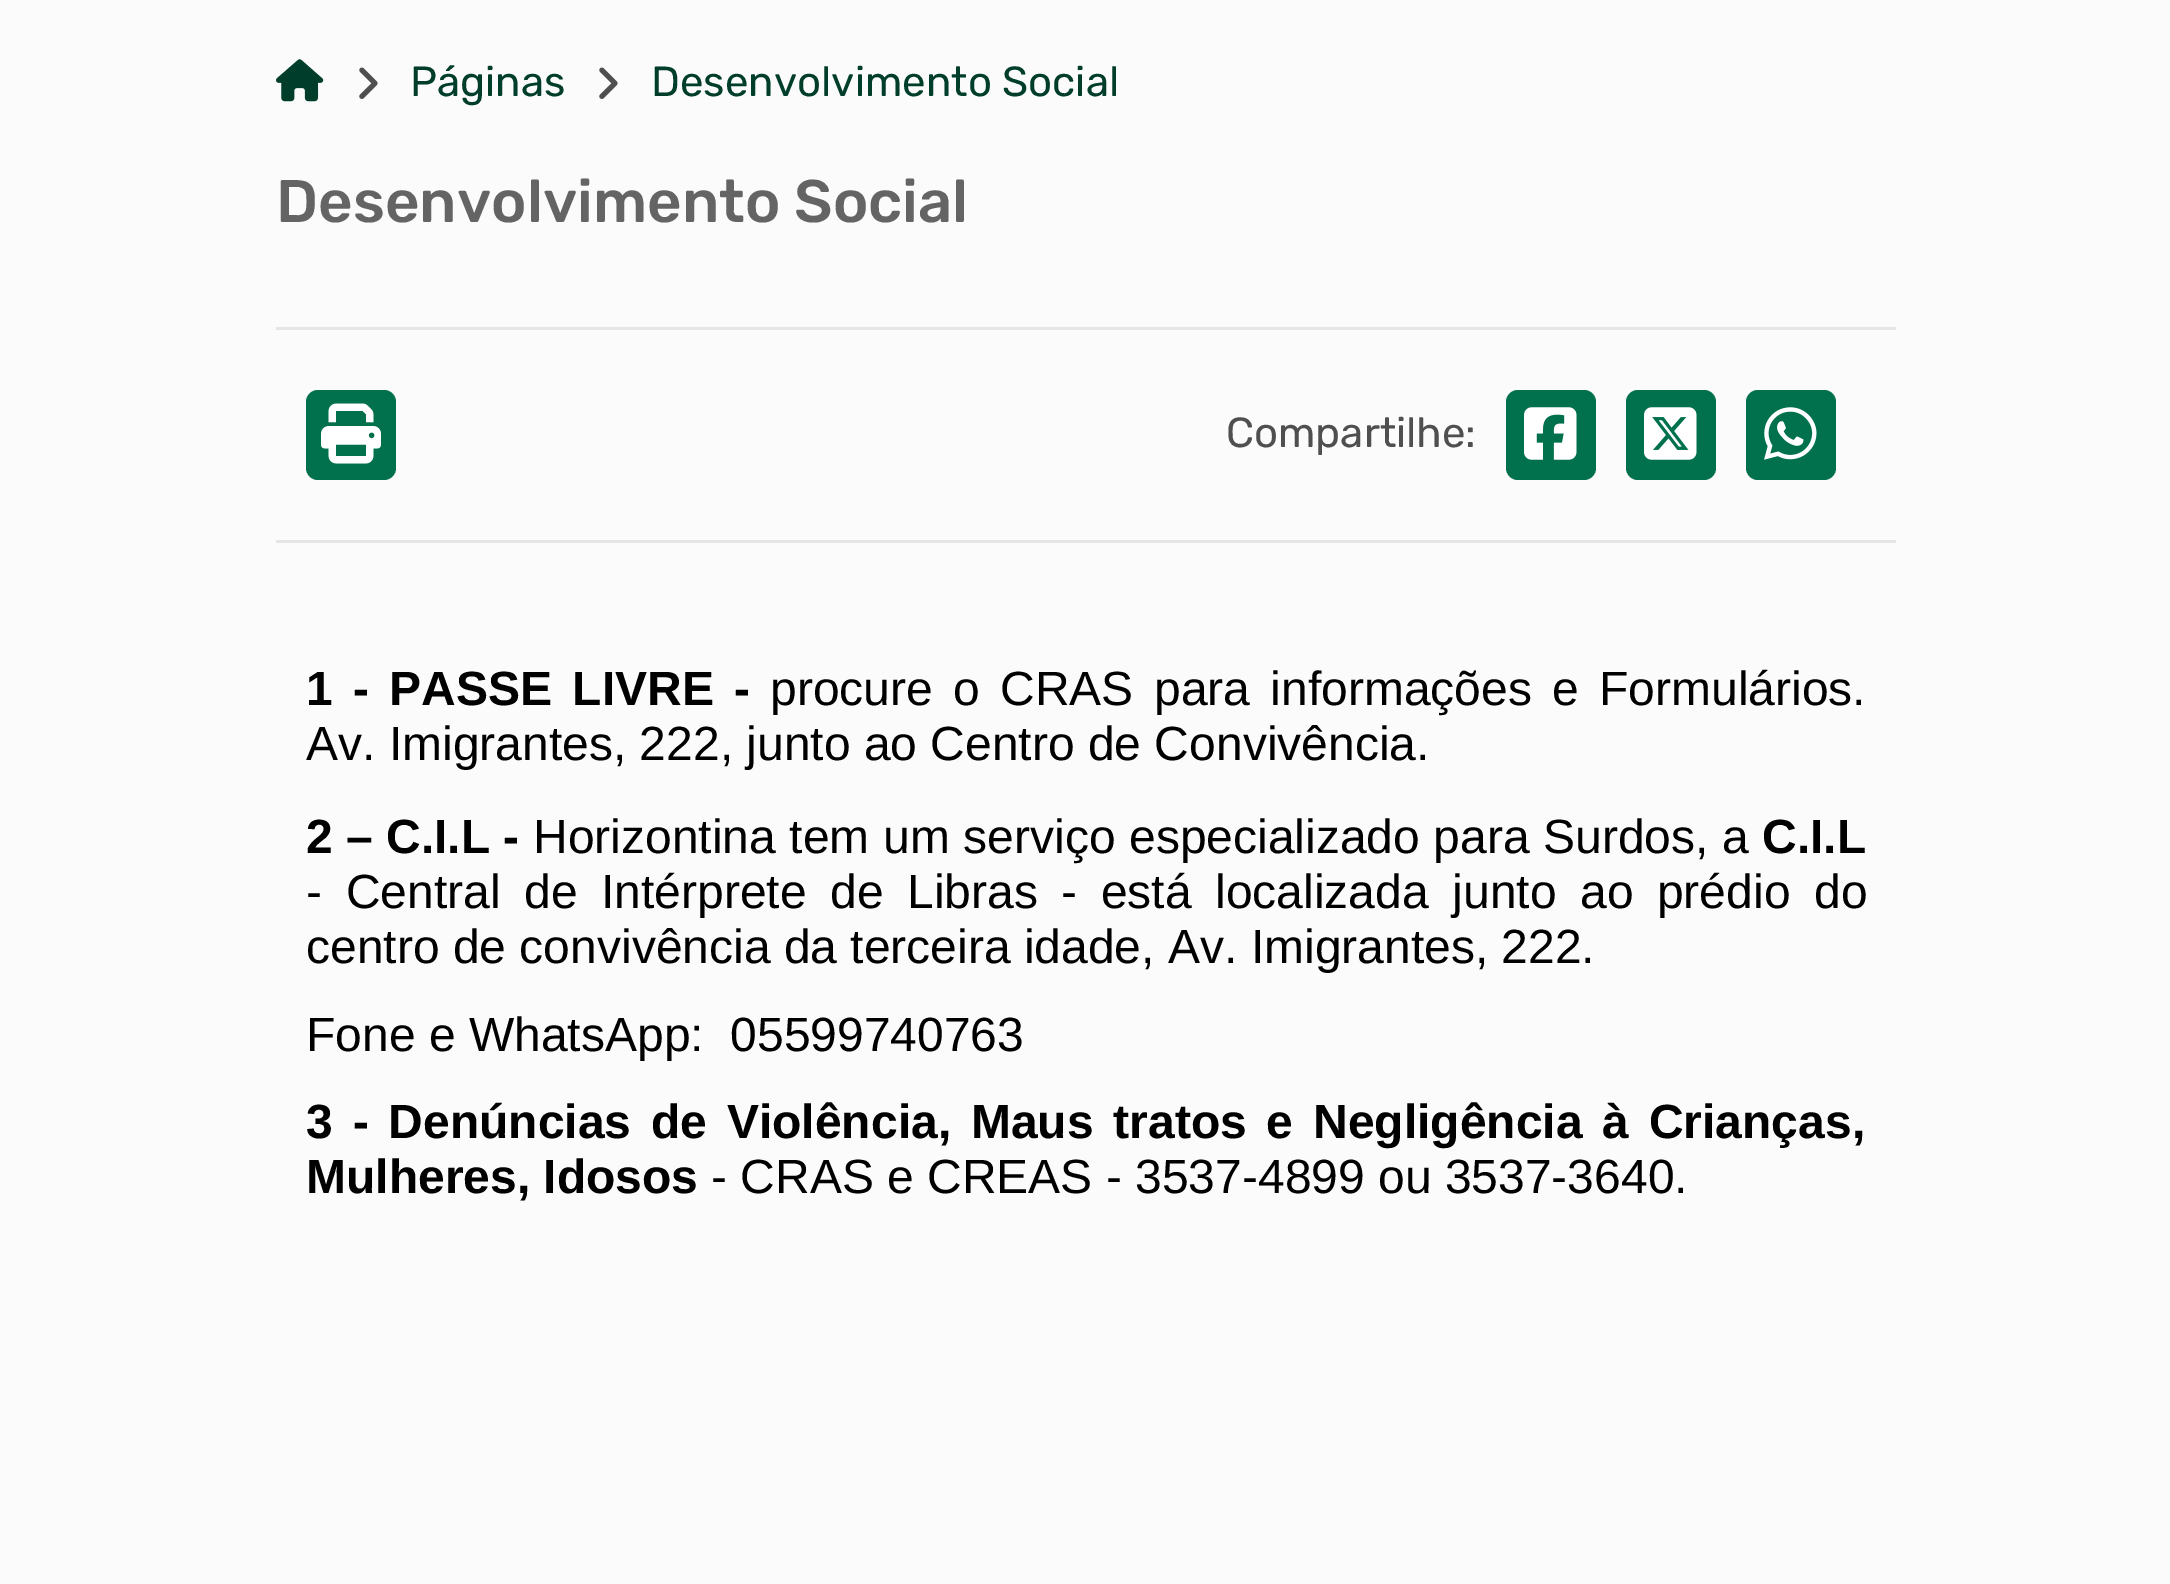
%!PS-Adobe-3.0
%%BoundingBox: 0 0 2170 1584
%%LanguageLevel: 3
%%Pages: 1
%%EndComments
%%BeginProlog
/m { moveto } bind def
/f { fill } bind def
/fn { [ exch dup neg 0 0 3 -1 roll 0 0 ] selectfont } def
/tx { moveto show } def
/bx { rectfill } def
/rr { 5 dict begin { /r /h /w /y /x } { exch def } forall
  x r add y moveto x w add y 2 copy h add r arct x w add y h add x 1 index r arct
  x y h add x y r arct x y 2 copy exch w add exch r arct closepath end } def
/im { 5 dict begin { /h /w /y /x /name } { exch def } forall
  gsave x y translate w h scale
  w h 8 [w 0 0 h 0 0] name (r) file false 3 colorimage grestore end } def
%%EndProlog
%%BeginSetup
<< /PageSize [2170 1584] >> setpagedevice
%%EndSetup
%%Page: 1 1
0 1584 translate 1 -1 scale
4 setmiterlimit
0.984 setgray
0 0 2170 1584 bx
(image0.raw) 276 59 48 43 im
(image1.raw) 359 67 19 32 im
/Rubik-Regular 42 fn
0 0.239 0.165 setrgbcolor
(Páginas) 410 96 tx
(image1.raw) 599 67 19 32 im
(Desenvolvimento Social) 651 96 tx
/Rubik-Medium 60 fn
0.392 setgray
(Desenvolvimento Social) 276 222 tx
0.898 setgray
276 327 1620 3 bx
276 540 1620 3 bx
0 0.439 0.302 setrgbcolor
306 390 90 90 12 rr f
(image2.raw) 321 403 60 61 im
/Rubik-Regular 42 fn
0.31 0.31 0.314 setrgbcolor
(Compartilhe:) 1226 447 tx
0 0.439 0.302 setrgbcolor
1506 390 90 90 12 rr f
(image3.raw) 1524 407 53 53 im
1626 390 90 90 12 rr f
(image4.raw) 1644 407 53 53 im
1746 390 90 90 12 rr f
(image5.raw) 1764 407 53 53 im
/LiberationSans-Bold 48 fn
0 setgray
306 705 m 7 0 32 (1 - PASSE LIVRE -) widthshow
/LiberationSans-Regular 48 fn
770 705 m 7 0 32 (procure o CRAS para informações e Formulários.) widthshow
(Av. Imigrantes, 222, junto ao Centro de Convivência.) 306 760 tx
/LiberationSans-Bold 48 fn
(2 – C.I.L -) 306 853 tx
/LiberationSans-Regular 48 fn
533 853 m 0.25 0 32 (Horizontina tem um serviço especializado para Surdos, a) widthshow
/LiberationSans-Bold 48 fn
(C.I.L) 1762 853 tx
/LiberationSans-Regular 48 fn
306 908 m 10.25 0 32 (- Central de Intérprete de Libras - está localizada junto ao prédio do) widthshow
(centro de convivência da terceira idade, Av. Imigrantes, 222.) 306 963 tx
(Fone e WhatsApp:  05599740763) 306 1051 tx
/LiberationSans-Bold 48 fn
306 1138 m 6.5 0 32 (3 - Denúncias de Violência, Maus tratos e Negligência à Crianças,) widthshow
(Mulheres, Idosos) 306 1193 tx
/LiberationSans-Regular 48 fn
(- CRAS e CREAS - 3537-4899 ou 3537-3640.) 711 1193 tx
showpage
%%EOF
